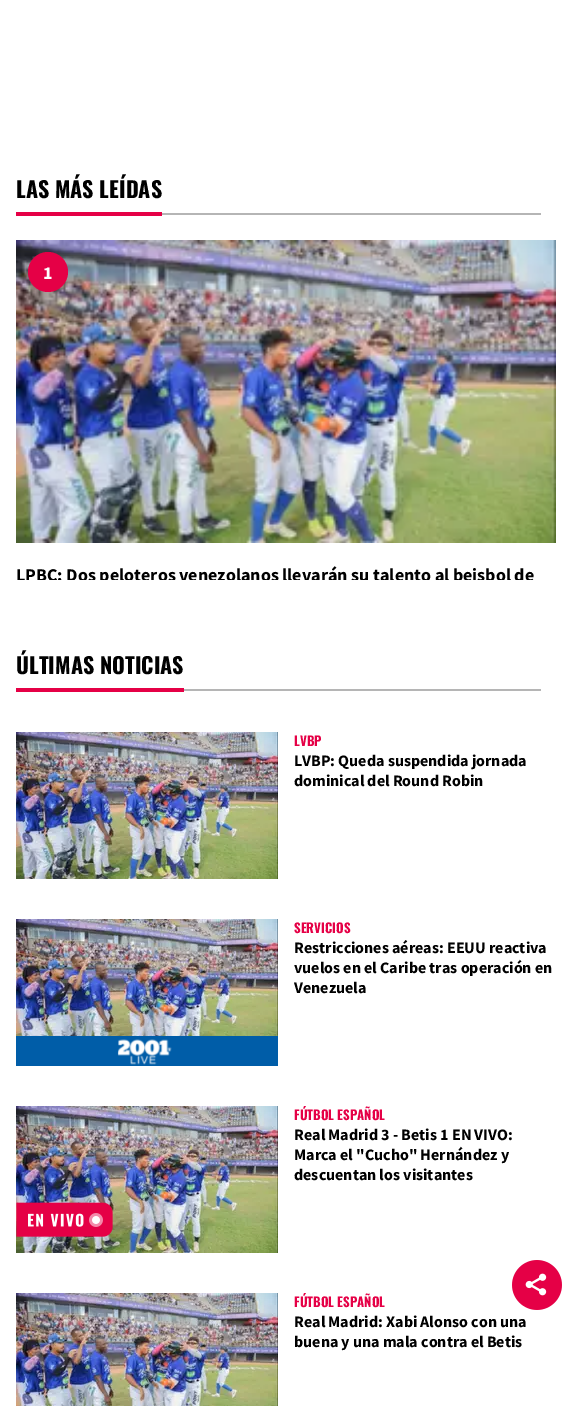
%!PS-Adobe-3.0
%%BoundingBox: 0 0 572 1406
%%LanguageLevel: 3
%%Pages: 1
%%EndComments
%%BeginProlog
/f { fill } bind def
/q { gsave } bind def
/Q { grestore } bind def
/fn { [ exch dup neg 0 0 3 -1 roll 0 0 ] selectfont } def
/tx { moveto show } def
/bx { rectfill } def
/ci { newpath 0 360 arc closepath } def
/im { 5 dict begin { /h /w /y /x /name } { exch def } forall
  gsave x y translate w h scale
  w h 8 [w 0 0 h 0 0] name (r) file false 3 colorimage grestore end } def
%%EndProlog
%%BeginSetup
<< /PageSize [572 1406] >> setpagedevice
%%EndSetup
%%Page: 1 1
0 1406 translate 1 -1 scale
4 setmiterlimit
1 setgray
0 0 572 1406 bx
0.898 0 0.275 setrgbcolor
16 212 146 4 bx
/Oswald-Bold 22 fn
0 setgray
(LAS MÁS LEÍDAS) 16 198 tx
0.71 setgray
162 213 379 2 bx
(image0.raw) 16 240 540 303 im
0.898 0 0.275 setrgbcolor
48 272 20 ci f
/SourceSansPro-Bold 18 fn
1 setgray
(1) 43 279 tx
q
16 563 540 17 rectclip
0 setgray
(LPBC: Dos peloteros venezolanos llevarán su talento al beisbol de) 16 581 tx
Q
0.898 0 0.275 setrgbcolor
16 688 168 4 bx
/Oswald-Bold 22 fn
0 setgray
(ÚLTIMAS NOTICIAS) 16 674 tx
0.71 setgray
184 689 357 2 bx
(image1.raw) 16 732 262 147 im
/Oswald-Bold 13 fn
0.898 0 0.275 setrgbcolor
(LVBP) 294 746 tx
/SourceSansPro-Bold 16 fn
0 setgray
(LVBP: Queda suspendida jornada) 294 766 tx
(dominical del Round Robin) 294 786 tx
(image2.raw) 16 919 262 117 im
0 0.365 0.659 setrgbcolor
16 1036 262 30 bx
(image3.raw) 117 1039 55 26 im
/Oswald-Bold 13 fn
0.898 0 0.275 setrgbcolor
(SERVICIOS) 294 933 tx
/SourceSansPro-Bold 16 fn
0 setgray
(Restricciones aéreas: EEUU reactiva) 294 953 tx
(vuelos en el Caribe tras operación en) 294 973 tx
(Venezuela) 294 993 tx
(image1.raw) 16 1106 262 147 im
(image4.raw) 16 1202 97 35 im
/Oswald-Bold 13 fn
0.898 0 0.275 setrgbcolor
(FÚTBOL ESPAÑOL) 294 1120 tx
/SourceSansPro-Bold 16 fn
0 setgray
(Real Madrid 3 - Betis 1 EN VIVO:) 294 1140 tx
(Marca el "Cucho" Hernández y) 294 1160 tx
(descuentan los visitantes) 294 1180 tx
(image5.raw) 16 1293 262 113 im
/Oswald-Bold 13 fn
0.898 0 0.275 setrgbcolor
(FÚTBOL ESPAÑOL) 294 1307 tx
/SourceSansPro-Bold 16 fn
0 setgray
(Real Madrid: Xabi Alonso con una) 294 1327 tx
(buena y una mala contra el Betis) 294 1347 tx
(image6.raw) 512 1260 50 50 im
showpage
%%EOF
